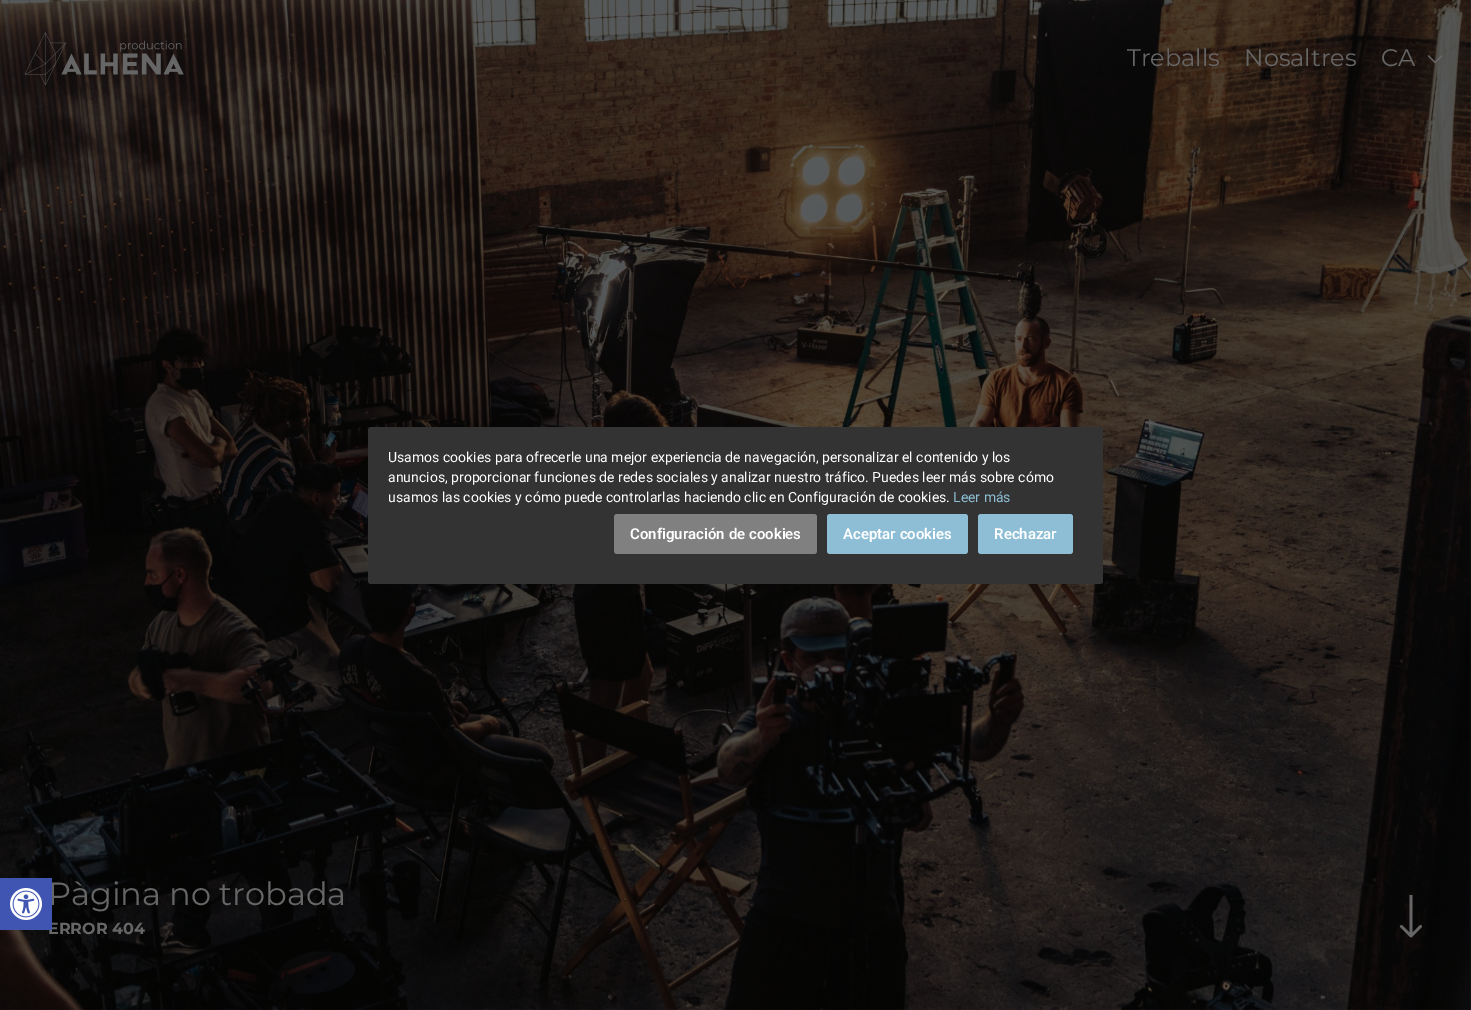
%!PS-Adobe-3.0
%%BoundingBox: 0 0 1471 1010
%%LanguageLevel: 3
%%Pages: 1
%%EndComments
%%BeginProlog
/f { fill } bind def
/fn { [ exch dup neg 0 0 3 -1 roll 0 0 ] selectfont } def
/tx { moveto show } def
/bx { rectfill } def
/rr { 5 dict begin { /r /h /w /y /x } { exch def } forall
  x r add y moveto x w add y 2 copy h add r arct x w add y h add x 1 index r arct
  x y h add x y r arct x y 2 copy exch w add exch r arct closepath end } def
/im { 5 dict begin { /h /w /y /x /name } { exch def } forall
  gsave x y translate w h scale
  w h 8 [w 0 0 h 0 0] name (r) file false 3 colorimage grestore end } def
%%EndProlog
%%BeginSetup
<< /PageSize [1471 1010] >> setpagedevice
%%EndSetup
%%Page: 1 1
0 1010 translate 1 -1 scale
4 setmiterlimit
1 setgray
0 0 1471 1010 bx
(image3.raw) 0 0 1471 1010 im
(image0.raw) 25 32 159 53 im
/Montserrat-Regular 24 fn
0.4 setgray
(Treballs) 1127 66 tx
(Nosaltres) 1244 66 tx
(CA) 1381 66 tx
(image1.raw) 1427 55 16 9 im
0.2 setgray
368 427 735 157 3 rr f
/Roboto-Regular 14 fn
1 setgray
(Usamos cookies para ofrecerle una mejor experiencia de navegación, personalizar el contenido y los) 388 462 tx
(anuncios, proporcionar funciones de redes sociales y analizar nuestro tráfico. Puedes leer más sobre cómo) 388 482 tx
(usamos las cookies y cómo puede controlarlas haciendo clic en Configuración de cookies.) 388 502 tx
0.553 0.745 0.835 setrgbcolor
(Leer más) 953 502 tx
0.502 setgray
614 514 203 40 3 rr f
/Roboto-SemiBold 15 fn
1 setgray
(Configuración de cookies) 630 539 tx
0.553 0.745 0.835 setrgbcolor
827 514 141 40 3 rr f
1 setgray
(Aceptar cookies) 843 539 tx
0.553 0.745 0.835 setrgbcolor
978 514 95 40 3 rr f
1 setgray
(Rechazar) 994 539 tx
/Montserrat-Regular 32 fn
0.4 setgray
(Pàgina no trobada) 48 905 tx
/Montserrat-Bold 16 fn
(ERROR 404) 48 934 tx
0.251 0.329 0.698 setrgbcolor
0 878 52 52 bx
(image2.raw) 10 888 32 32 im
(image4.raw) 1400 895 22 43 im
showpage
%%EOF
